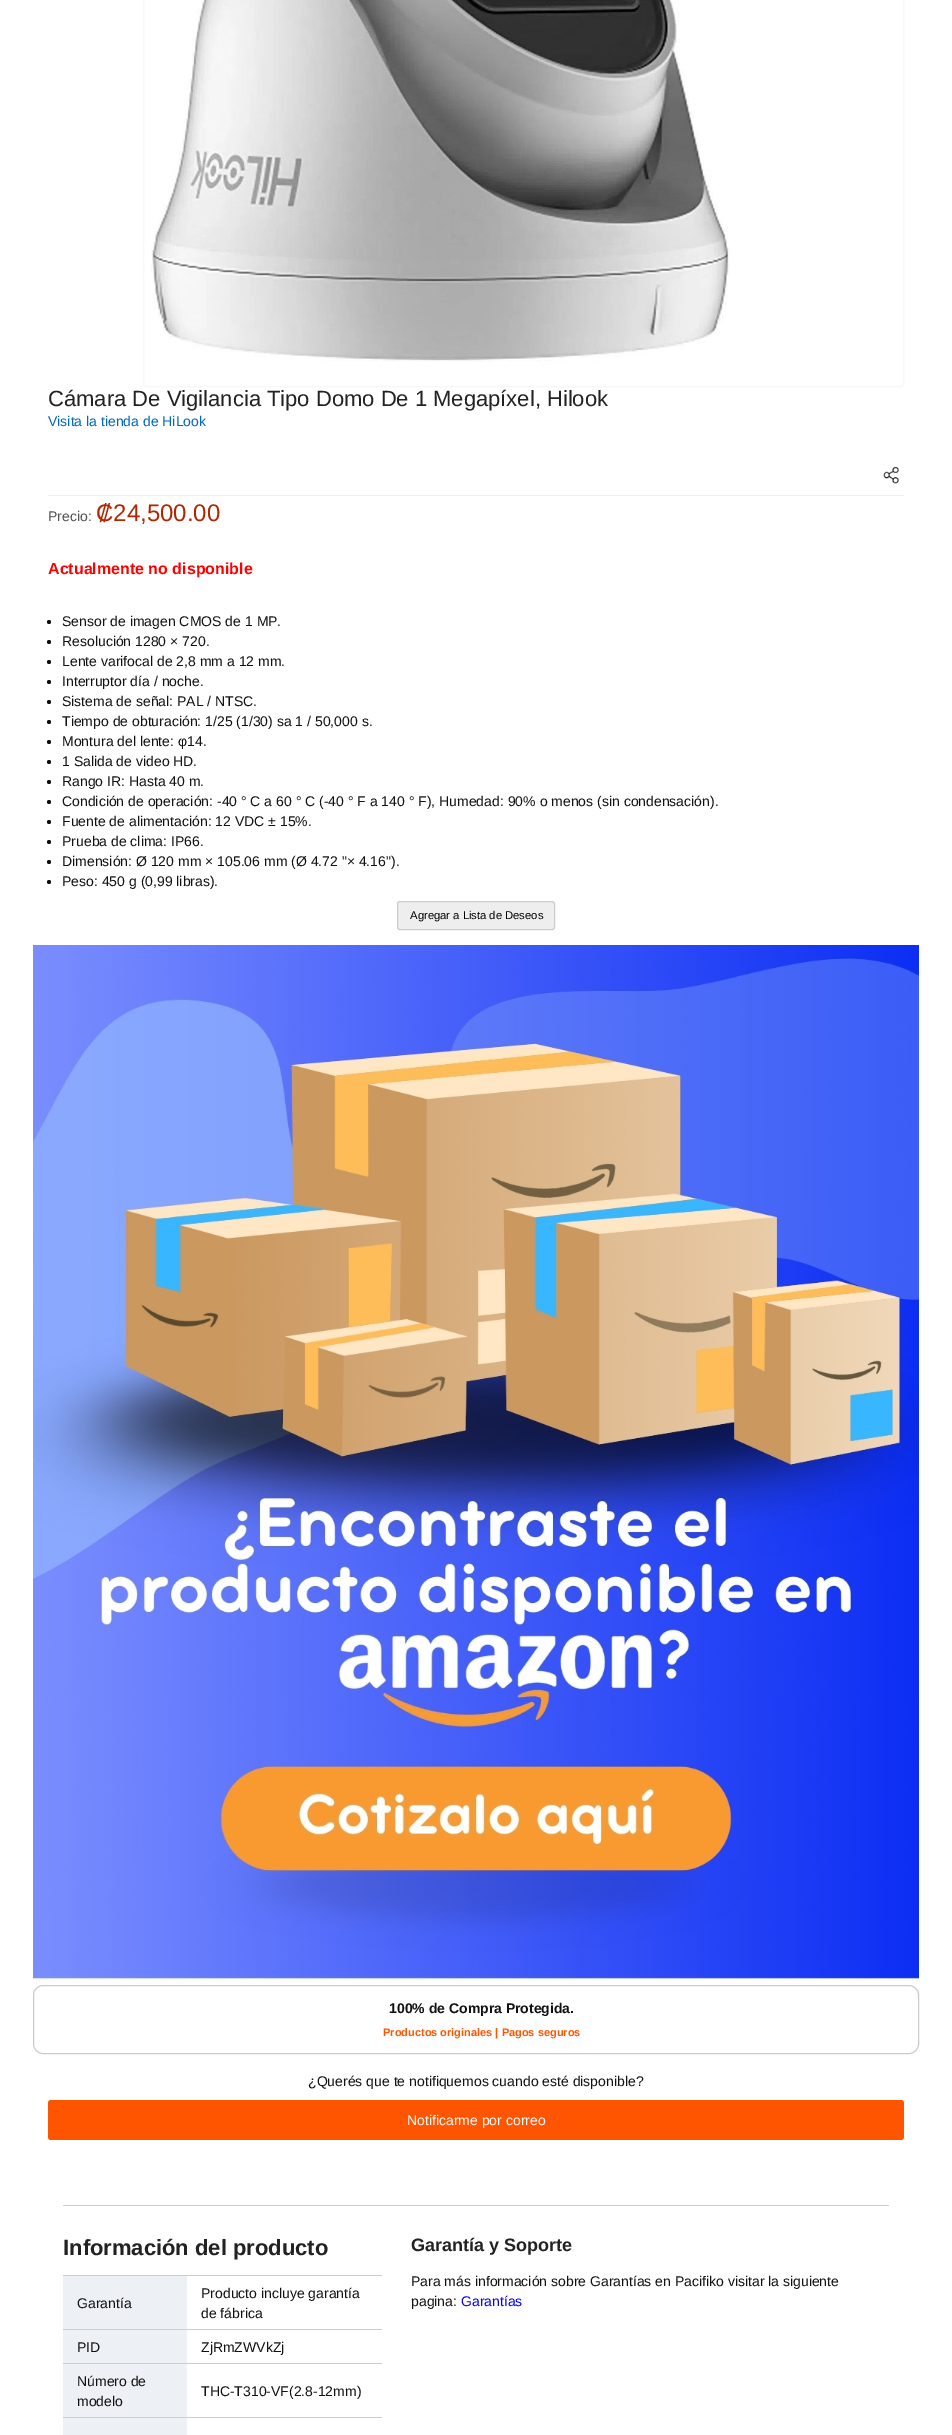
%!PS-Adobe-3.0
%%BoundingBox: 0 0 952 2435
%%LanguageLevel: 3
%%Pages: 1
%%EndComments
%%BeginProlog
/f { fill } bind def
/S { stroke } bind def
/q { gsave } bind def
/Q { grestore } bind def
/fn { [ exch dup neg 0 0 3 -1 roll 0 0 ] selectfont } def
/tx { moveto show } def
/bx { rectfill } def
/ci { newpath 0 360 arc closepath } def
/rr { 5 dict begin { /r /h /w /y /x } { exch def } forall
  x r add y moveto x w add y 2 copy h add r arct x w add y h add x 1 index r arct
  x y h add x y r arct x y 2 copy exch w add exch r arct closepath end } def
/im { 5 dict begin { /h /w /y /x /name } { exch def } forall
  gsave x y translate w h scale
  w h 8 [w 0 0 h 0 0] name (r) file false 3 colorimage grestore end } def
%%EndProlog
%%BeginSetup
<< /PageSize [952 2435] >> setpagedevice
%%EndSetup
%%Page: 1 1
0 2435 translate 1 -1 scale
4 setmiterlimit
1 setgray
0 0 952 2435 bx
0.969 setgray
143.5 -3.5 760 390 2.5 rr S
(image0.raw) 151 0 579 362 im
/LiberationSans-Regular 22 fn
0.133 setgray
(Cámara De Vigilancia Tipo Domo De 1 Megapíxel, Hilook) 48 406 tx
/LiberationSans-Regular 14 fn
0 0.4 0.753 setrgbcolor
(Visita la tienda de HiLook) 48 426 tx
0.933 setgray
48 495 856 1 bx
(image1.raw) 883 467 16 17 im
0.322 setgray
(Precio:) 48 521 tx
/LiberationSans-Regular 24 fn
0.694 0.153 0.016 setrgbcolor
(₡24,500.00) 96 521 tx
/LiberationSans-Bold 16 fn
1 0 0 setrgbcolor
(Actualmente no disponible) 48 574 tx
0.067 setgray
49 622 2 ci f
/LiberationSans-Regular 14 fn
(Sensor de imagen CMOS de 1 MP.) 62 626 tx
49 642 2 ci f
(Resolución 1280 × 720.) 62 646 tx
49 662 2 ci f
(Lente varifocal de 2,8 mm a 12 mm.) 62 666 tx
49 682 2 ci f
(Interruptor día / noche.) 62 686 tx
49 702 2 ci f
(Sistema de señal: PAL / NTSC.) 62 706 tx
49 722 2 ci f
(Tiempo de obturación: 1/25 \(1/30\) sa 1 / 50,000 s.) 62 726 tx
49 742 2 ci f
(Montura del lente: φ14.) 62 746 tx
49 762 2 ci f
(1 Salida de video HD.) 62 766 tx
49 782 2 ci f
(Rango IR: Hasta 40 m.) 62 786 tx
49 802 2 ci f
(Condición de operación: -40 ° C a 60 ° C \(-40 ° F a 140 ° F\), Humedad: 90% o menos \(sin condensación\).) 62 806 tx
49 822 2 ci f
(Fuente de alimentación: 12 VDC ± 15%.) 62 826 tx
49 842 2 ci f
(Prueba de clima: IP66.) 62 846 tx
49 862 2 ci f
(Dimensión: Ø 120 mm × 105.06 mm \(Ø 4.72 "× 4.16"\).) 62 866 tx
49 882 2 ci f
(Peso: 450 g \(0,99 libras\).) 62 886 tx
0.933 setgray
397.5 901.5 157 28 2.5 rr q f Q
0.8 setgray
S
/LiberationSans-Regular 11.25 fn
0 setgray
(Agregar a Lista de Deseos) 410 919 tx
(image2.raw) 33 945 886 1035 im
0.8 setgray
33.5 1985.5 885 68 9.5 rr S
/LiberationSans-Bold 14 fn
0.067 setgray
(100% de Compra Protegida.) 389 2013 tx
/LiberationSans-Bold 11 fn
1 0.333 0 setrgbcolor
(Productos originales | Pagos seguros) 383 2036 tx
/LiberationSans-Regular 14 fn
0.067 setgray
(¿Querés que te notifiquemos cuando esté disponible?) 308 2086 tx
1 0.333 0 setrgbcolor
48 2100 856 40 3 rr f
1 setgray
(Notificarme por correo) 407 2125 tx
0.8 setgray
63 2205 826 1 bx
/LiberationSans-Bold 22 fn
0.133 setgray
(Información del producto) 63 2255 tx
0.796 0.804 0.82 setrgbcolor
63 2275 319 1 bx
0.929 0.941 0.961 setrgbcolor
63 2276 124 53 bx
/LiberationSans-Regular 14 fn
0.067 setgray
(Garantía) 77 2308 tx
(Producto incluye garantía) 201 2298 tx
(de fábrica) 201 2318 tx
0.796 0.804 0.82 setrgbcolor
63 2329 319 1 bx
0.929 0.941 0.961 setrgbcolor
63 2330 124 33 bx
0.067 setgray
(PID) 77 2352 tx
(ZjRmZWVkZj) 201 2352 tx
0.796 0.804 0.82 setrgbcolor
63 2363 319 1 bx
0.929 0.941 0.961 setrgbcolor
63 2364 124 53 bx
0.067 setgray
(Número de) 77 2386 tx
(modelo) 77 2406 tx
(THC-T310-VF\(2.8-12mm\)) 201 2396 tx
0.796 0.804 0.82 setrgbcolor
63 2417 319 1 bx
0.929 0.941 0.961 setrgbcolor
63 2418 124 17 bx
/LiberationSans-Bold 18 fn
0.133 setgray
(Garantía y Soporte) 411 2251 tx
/LiberationSans-Regular 14 fn
0.067 setgray
(Para más información sobre Garantías en Pacifiko visitar la siguiente) 411 2286 tx
(pagina:) 411 2306 tx
0 0 1 setrgbcolor
(Garantías) 461 2306 tx
showpage
%%EOF
